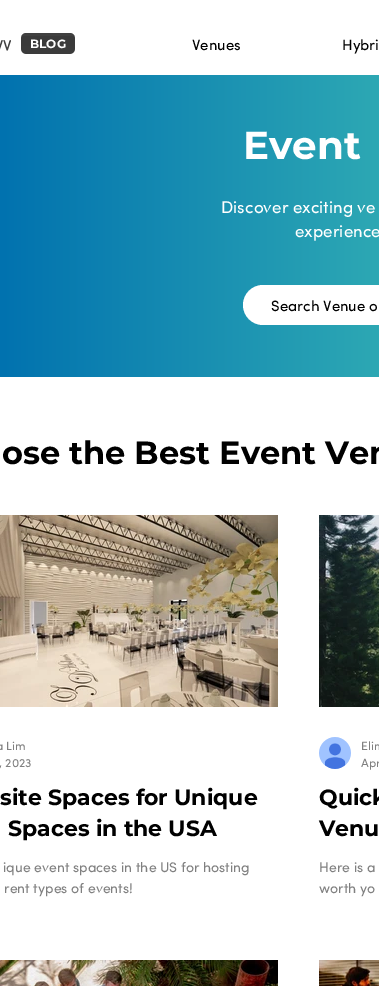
%!PS-Adobe-3.0
%%BoundingBox: 0 0 379 986
%%LanguageLevel: 3
%%Pages: 1
%%EndComments
%%BeginProlog
/m { moveto } bind def
/l { lineto } bind def
/h { closepath } bind def
/f { fill } bind def
/q { gsave } bind def
/Q { grestore } bind def
/fn { [ exch dup neg 0 0 3 -1 roll 0 0 ] selectfont } def
/tx { moveto show } def
/bx { rectfill } def
/rr { 5 dict begin { /r /h /w /y /x } { exch def } forall
  x r add y moveto x w add y 2 copy h add r arct x w add y h add x 1 index r arct
  x y h add x y r arct x y 2 copy exch w add exch r arct closepath end } def
/im { 5 dict begin { /h /w /y /x /name } { exch def } forall
  gsave x y translate w h scale
  w h 8 [w 0 0 h 0 0] name (r) file false 3 colorimage grestore end } def
%%EndProlog
%%BeginSetup
<< /PageSize [379 986] >> setpagedevice
%%EndSetup
%%Page: 1 1
0 986 translate 1 -1 scale
4 setmiterlimit
1 setgray
0 0 379 986 bx
(image0.raw) 0 40 11 11 im
0.251 setgray
21 33 54 21 5 rr f
(image1.raw) 21 36 54 18 im
/Montserrat-Bold 12 fn
1 setgray
(BLOG) 30 48 tx
/Sofia-Regular 15 fn
0 setgray
(Venues) 192 50 tx
(Hybri) 342 50 tx
q 0 75 m 379 75 l 379 377 l 0 377 l h clip newpath
<< /ShadingType 2 /ColorSpace /DeviceRGB /Coords [0 226 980 226] /Extend [true true] /Function << /FunctionType 2 /Domain [0 1] /C0 [0.004 0.447 0.686] /C1 [0.455 0.996 0.741] /N 1 >> >> shfill Q
/Montserrat-Bold 39 fn
1 setgray
(Event) 243 159 tx
/Sofia-Regular 17 fn
(Discover exciting ve) 221 213 tx
(experience) 295 237 tx
243 285 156 40 20 rr f
/Sofia-Regular 15 fn
0 setgray
(Search Venue o) 271 311 tx
/Montserrat-Bold 32 fn
(ose the Best Event Ven) 2 464 tx
(image2.raw) 0 515 278 192 im
/Sofia-Regular 12 fn
0.502 setgray
(a Lim) -4 750 tx
(, 2023) -1 767 tx
/Montserrat-Bold 22 fn
0 setgray
(site Spaces for Unique) 0 805 tx
(Spaces in the USA) 8 836 tx
/Sofia-Regular 14 fn
0.502 setgray
(ique event spaces in the US for hosting) 3 872 tx
(rent types of events!) 4 893 tx
(image3.raw) 319 515 60 192 im
(image4.raw) 319 737 32 32 im
/Sofia-Regular 12 fn
(Elin) 361 750 tx
(Apr) 361 767 tx
/Montserrat-Bold 22 fn
0 setgray
(Quick) 319 805 tx
(Venu) 319 836 tx
/Sofia-Regular 14 fn
0.502 setgray
(Here is a) 319 872 tx
(worth yo) 319 893 tx
(image5.raw) 0 960 278 26 im
(image6.raw) 319 960 60 26 im
showpage
%%EOF
